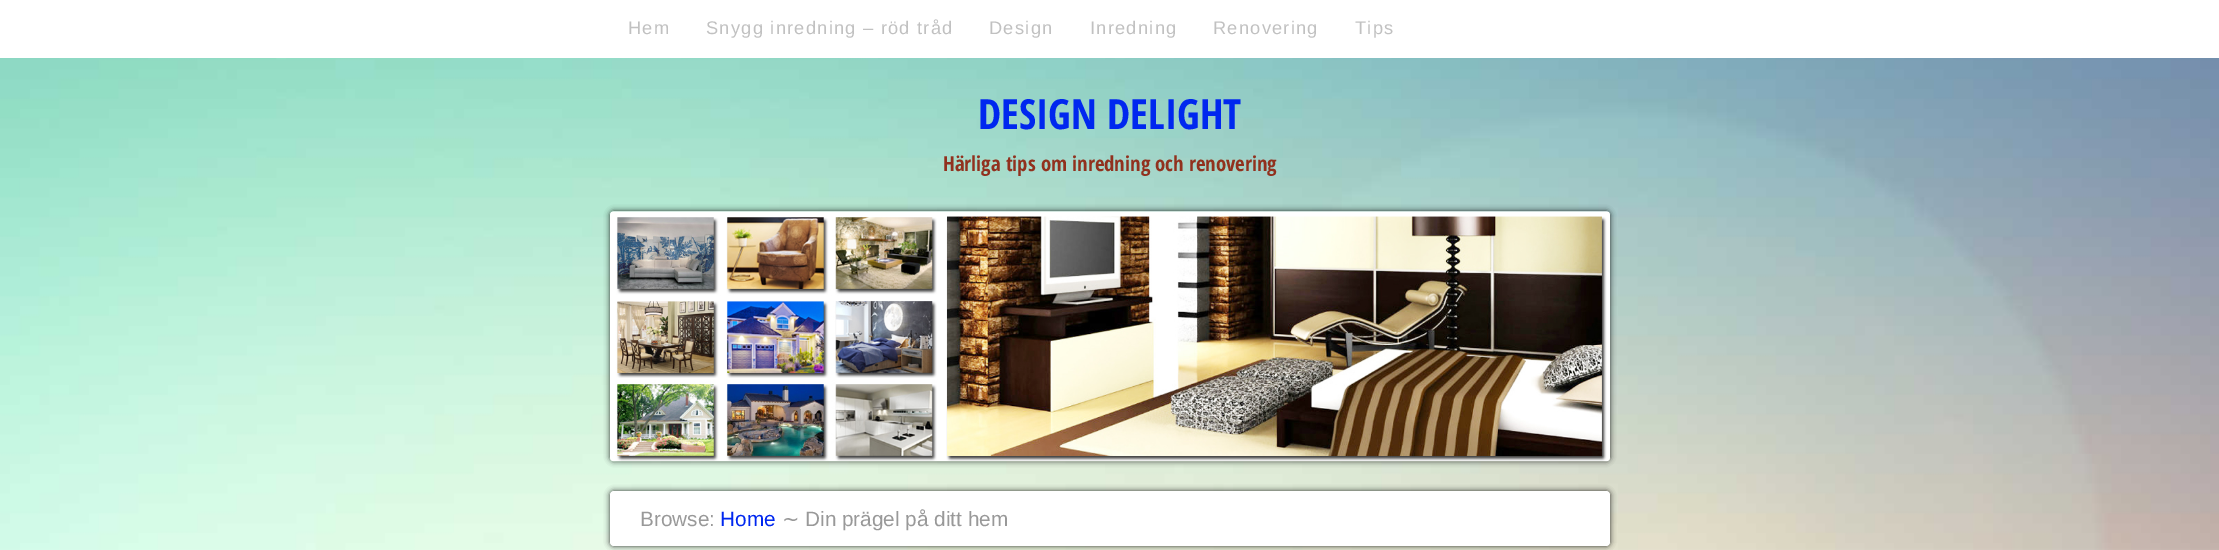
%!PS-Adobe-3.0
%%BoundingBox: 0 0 2219 550
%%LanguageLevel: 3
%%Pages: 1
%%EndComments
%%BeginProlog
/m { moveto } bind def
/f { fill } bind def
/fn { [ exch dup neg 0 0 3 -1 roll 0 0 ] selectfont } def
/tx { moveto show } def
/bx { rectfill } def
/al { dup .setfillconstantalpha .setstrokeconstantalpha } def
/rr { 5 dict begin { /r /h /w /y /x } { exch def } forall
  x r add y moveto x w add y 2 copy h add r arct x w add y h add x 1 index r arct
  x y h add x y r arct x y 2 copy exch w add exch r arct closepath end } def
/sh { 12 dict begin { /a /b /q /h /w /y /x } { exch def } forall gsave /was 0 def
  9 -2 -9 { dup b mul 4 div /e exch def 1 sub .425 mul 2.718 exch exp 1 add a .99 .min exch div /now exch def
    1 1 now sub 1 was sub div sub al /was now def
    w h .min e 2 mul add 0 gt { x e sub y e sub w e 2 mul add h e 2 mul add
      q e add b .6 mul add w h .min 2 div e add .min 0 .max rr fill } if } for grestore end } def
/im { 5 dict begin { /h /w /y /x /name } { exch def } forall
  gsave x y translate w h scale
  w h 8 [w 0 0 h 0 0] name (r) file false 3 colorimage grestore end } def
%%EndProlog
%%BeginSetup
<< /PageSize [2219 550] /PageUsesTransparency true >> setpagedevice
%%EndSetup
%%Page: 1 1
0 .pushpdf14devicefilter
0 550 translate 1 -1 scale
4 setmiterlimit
1 setgray
0 0 2219 550 bx
(image0.raw) 0 58 2219 492 im
/LiberationSans-Regular 18.25 fn
0.757 setgray
628 34 m 1.25 0 (Hem) ashow
706 34 m 1.25 0 (Snygg inredning – röd tråd) ashow
989 34 m 1.25 0 (Design) ashow
1090 34 m 1.25 0 (Inredning) ashow
1213 34 m 1.25 0 (Renovering) ashow
1355 34 m 1.25 0 (Tips) ashow
/OpenSansCondensed-Bold 41.5 fn
0 0.153 0.937 setrgbcolor
(DESIGN DELIGHT) 978 129 tx
/OpenSansCondensed-Bold 20.75 fn
0.569 0.192 0.118 setrgbcolor
(Härliga tips om inredning och renovering) 943 171 tx
0 setgray
610 211 1000 250 4 3 0.8 sh
(image1.raw) 610 211 1000 251 im
610 491 1000 55 4 3 0.8 sh
1 setgray
610 491 1000 55 4 rr f
/LiberationSans-Regular 20.75 fn
0.6 setgray
(Browse:) 640 526 tx
0 0.153 0.937 setrgbcolor
(Home) 720 526 tx
/DejaVuSans-Regular 20.75 fn
0.6 setgray
(∼) 782 526 tx
/LiberationSans-Regular 20.75 fn
(Din prägel på ditt hem) 805 526 tx
.poppdf14devicefilter showpage
%%EOF
